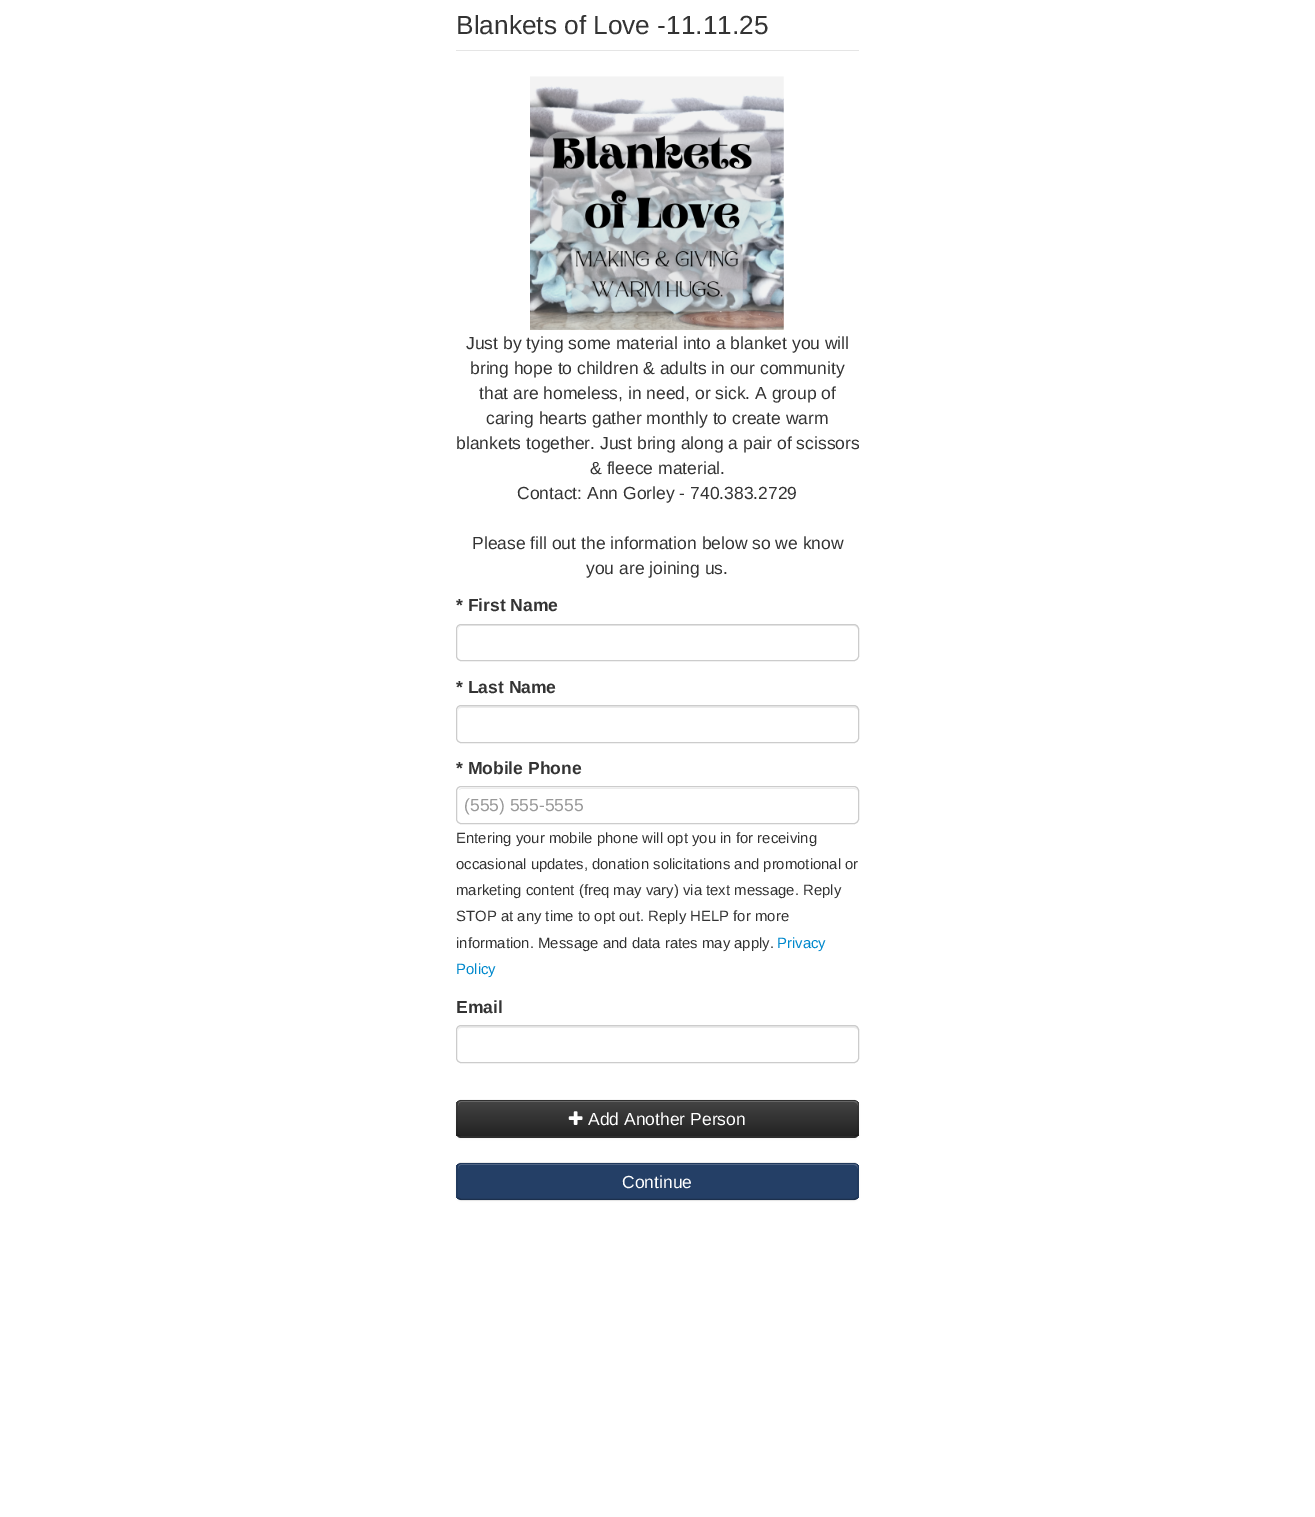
%!PS-Adobe-3.0
%%BoundingBox: 0 0 1315 1517
%%LanguageLevel: 3
%%Pages: 1
%%EndComments
%%BeginProlog
/m { moveto } bind def
/l { lineto } bind def
/c { curveto } bind def
/h { closepath } bind def
/f { fill } bind def
/S { stroke } bind def
/q { gsave } bind def
/Q { grestore } bind def
/w { setlinewidth } bind def
/fn { [ exch dup neg 0 0 3 -1 roll 0 0 ] selectfont } def
/tx { moveto show } def
/bx { rectfill } def
/al { dup .setfillconstantalpha .setstrokeconstantalpha } def
/rr { 5 dict begin { /r /h /w /y /x } { exch def } forall
  x r add y moveto x w add y 2 copy h add r arct x w add y h add x 1 index r arct
  x y h add x y r arct x y 2 copy exch w add exch r arct closepath end } def
/sh { 12 dict begin { /a /b /q /h /w /y /x } { exch def } forall gsave /was 0 def
  9 -2 -9 { dup b mul 4 div /e exch def 1 sub .425 mul 2.718 exch exp 1 add a .99 .min exch div /now exch def
    1 1 now sub 1 was sub div sub al /was now def
    w h .min e 2 mul add 0 gt { x e sub y e sub w e 2 mul add h e 2 mul add
      q e add b .6 mul add w h .min 2 div e add .min 0 .max rr fill } if } for grestore end } def
/im { 5 dict begin { /h /w /y /x /name } { exch def } forall
  gsave x y translate w h scale
  w h 8 [w 0 0 h 0 0] name (r) file false 3 colorimage grestore end } def
%%EndProlog
%%BeginSetup
<< /PageSize [1315 1517] /PageUsesTransparency true >> setpagedevice
%%EndSetup
%%Page: 1 1
0 .pushpdf14devicefilter
0 1517 translate 1 -1 scale
4 setmiterlimit
1 setgray
0 0 1315 1517 bx
0.898 setgray
456 50 403 1 bx
/LiberationSans-Regular 26.25 fn
0.2 setgray
(Blankets of Love -11.11.25) 456 34 tx
(image0.raw) 530 76 254 254 im
/LiberationSans-Regular 17.5 fn
(Just by tying some material into a blanket you will) 466 349 tx
(bring hope to children & adults in our community) 470 374 tx
(that are homeless, in need, or sick. A group of) 479 399 tx
(caring hearts gather monthly to create warm) 486 424 tx
(blankets together. Just bring along a pair of scissors) 456 449 tx
(& fleece material.) 590 474 tx
(Contact: Ann Gorley - 740.383.2729) 517 499 tx
(Please fill out the information below so we know) 472 549 tx
(you are joining us.) 586 574 tx
/LiberationSans-Bold 17.5 fn
(* First Name) 456 611 tx
0.925 setgray
461 626 m 854 626 l 856 626 858 628 858 630 c 858 627 857 625 854 625 c 462 625 l 459 625 458 627 458 630 c 458 628 459 626 461 626 c h f
0.8 setgray
456.5 624.5 402 36 4.5 rr S
0.2 setgray
(* Last Name) 456 693 tx
0.925 setgray
461 708 m 854 708 l 856 708 858 709 858 711 c 858 708 857 706 854 706 c 462 706 l 459 706 458 708 458 711 c 458 709 459 708 461 708 c h f
0.8 setgray
456.5 705.5 402 37 4.5 rr S
0.2 setgray
(* Mobile Phone) 456 774 tx
0.925 setgray
461 789 m 854 789 l 856 789 858 790 858 792 c 858 790 856 788 854 788 c 462 788 l 461 788 459 789 459 790 c h f
0.8 setgray
456.5 786.5 402 37 4.5 rr S
/LiberationSans-Regular 17.5 fn
0.6 setgray
(\(555\) 555-5555) 464 811 tx
/LiberationSans-Regular 14.9 fn
0.2 setgray
(Entering your mobile phone will opt you in for receiving) 456 843 tx
(occasional updates, donation solicitations and promotional or) 456 869 tx
(marketing content \(freq may vary\) via text message. Reply) 456 895 tx
(STOP at any time to opt out. Reply HELP for more) 456 921 tx
(information. Message and data rates may apply.) 456 948 tx
0 0.533 0.8 setrgbcolor
(Privacy) 777 948 tx
(Policy) 456 974 tx
/LiberationSans-Bold 17.5 fn
0.2 setgray
(Email) 456 1013 tx
0.925 setgray
461 1028 m 854 1028 l 856 1028 858 1029 858 1031 c 858 1028 857 1026 854 1026 c 462 1026 l 459 1026 458 1028 458 1031 c 458 1029 459 1028 461 1028 c h f
0.8 setgray
456.5 1025.5 402 37 4.5 rr S
0 setgray
456 1101 403 38 5 1 0.05 sh
0.212 setgray
456 1100 403 38 5 rr f
q
456 1100 403 38 5 rr clip newpath
q 456 1101 m 859 1101 l 859 1136 l 456 1136 l h clip newpath
<< /ShadingType 2 /ColorSpace /DeviceRGB /Coords [658 1101 658 1136] /Extend [true true] /Function << /FunctionType 2 /Domain [0 1] /C0 [0.267 0.267 0.267] /C1 [0.133 0.133 0.133] /N 1 >> >> shfill Q
Q
0.412 setgray
461 1102 m 854 1102 l 856 1102 858 1104 858 1106 c 858 1103 857 1101 854 1101 c 462 1101 l 459 1101 458 1103 458 1106 c 458 1104 459 1102 461 1102 c h f
0.25 al
0 setgray
1.2 w
857 1135.5 m 854 1137 l 461 1137 l 458 1135.5 l S
0.1 al
458 1135.5 m 457.5 1135 457 1133.5 457 1132.5 c 457 1105 l 457 1104 457.5 1102.5 458 1102 c 459 1101 460 1100.5 461 1100.5 c 854 1100.5 l 855 1100.5 856 1101 857 1102 c 857.5 1102.5 858 1104 858 1105 c 858 1132.5 l 858 1133.5 857.5 1135 857 1135.5 c S
1 al
(image1.raw) 568 1111 15 14 im
/LiberationSans-Regular 17.5 fn
1 setgray
(Add Another Person) 588 1125 tx
0 setgray
456 1164 403 37 5 1 0.05 sh
0.141 0.247 0.4 setrgbcolor
456 1163 403 37 5 rr f
q
456 1163 403 37 5 rr clip newpath
456 1164 403 35 bx
Q
0.314 0.396 0.522 setrgbcolor
461 1165 m 854 1165 l 856 1165 858 1167 858 1169 c 858 1166 857 1164 854 1164 c 462 1164 l 459 1164 458 1166 458 1169 c 458 1167 459 1165 461 1165 c h f
0.25 al
0 setgray
857 1198 m 854 1199.5 l 461 1199.5 l 458 1198 l S
0.1 al
458 1198 m 457.5 1197.5 457 1196 457 1195 c 457 1167.5 l 457 1166.5 457.5 1165 458 1164.5 c 459 1163.5 460 1163 461 1163 c 854 1163 l 855 1163 856 1163.5 857 1164.5 c 857.5 1165 858 1166.5 858 1167.5 c 858 1195 l 858 1196 857.5 1197.5 857 1198 c S
1 al
1 setgray
(Continue) 622 1188 tx
.poppdf14devicefilter showpage
%%EOF
